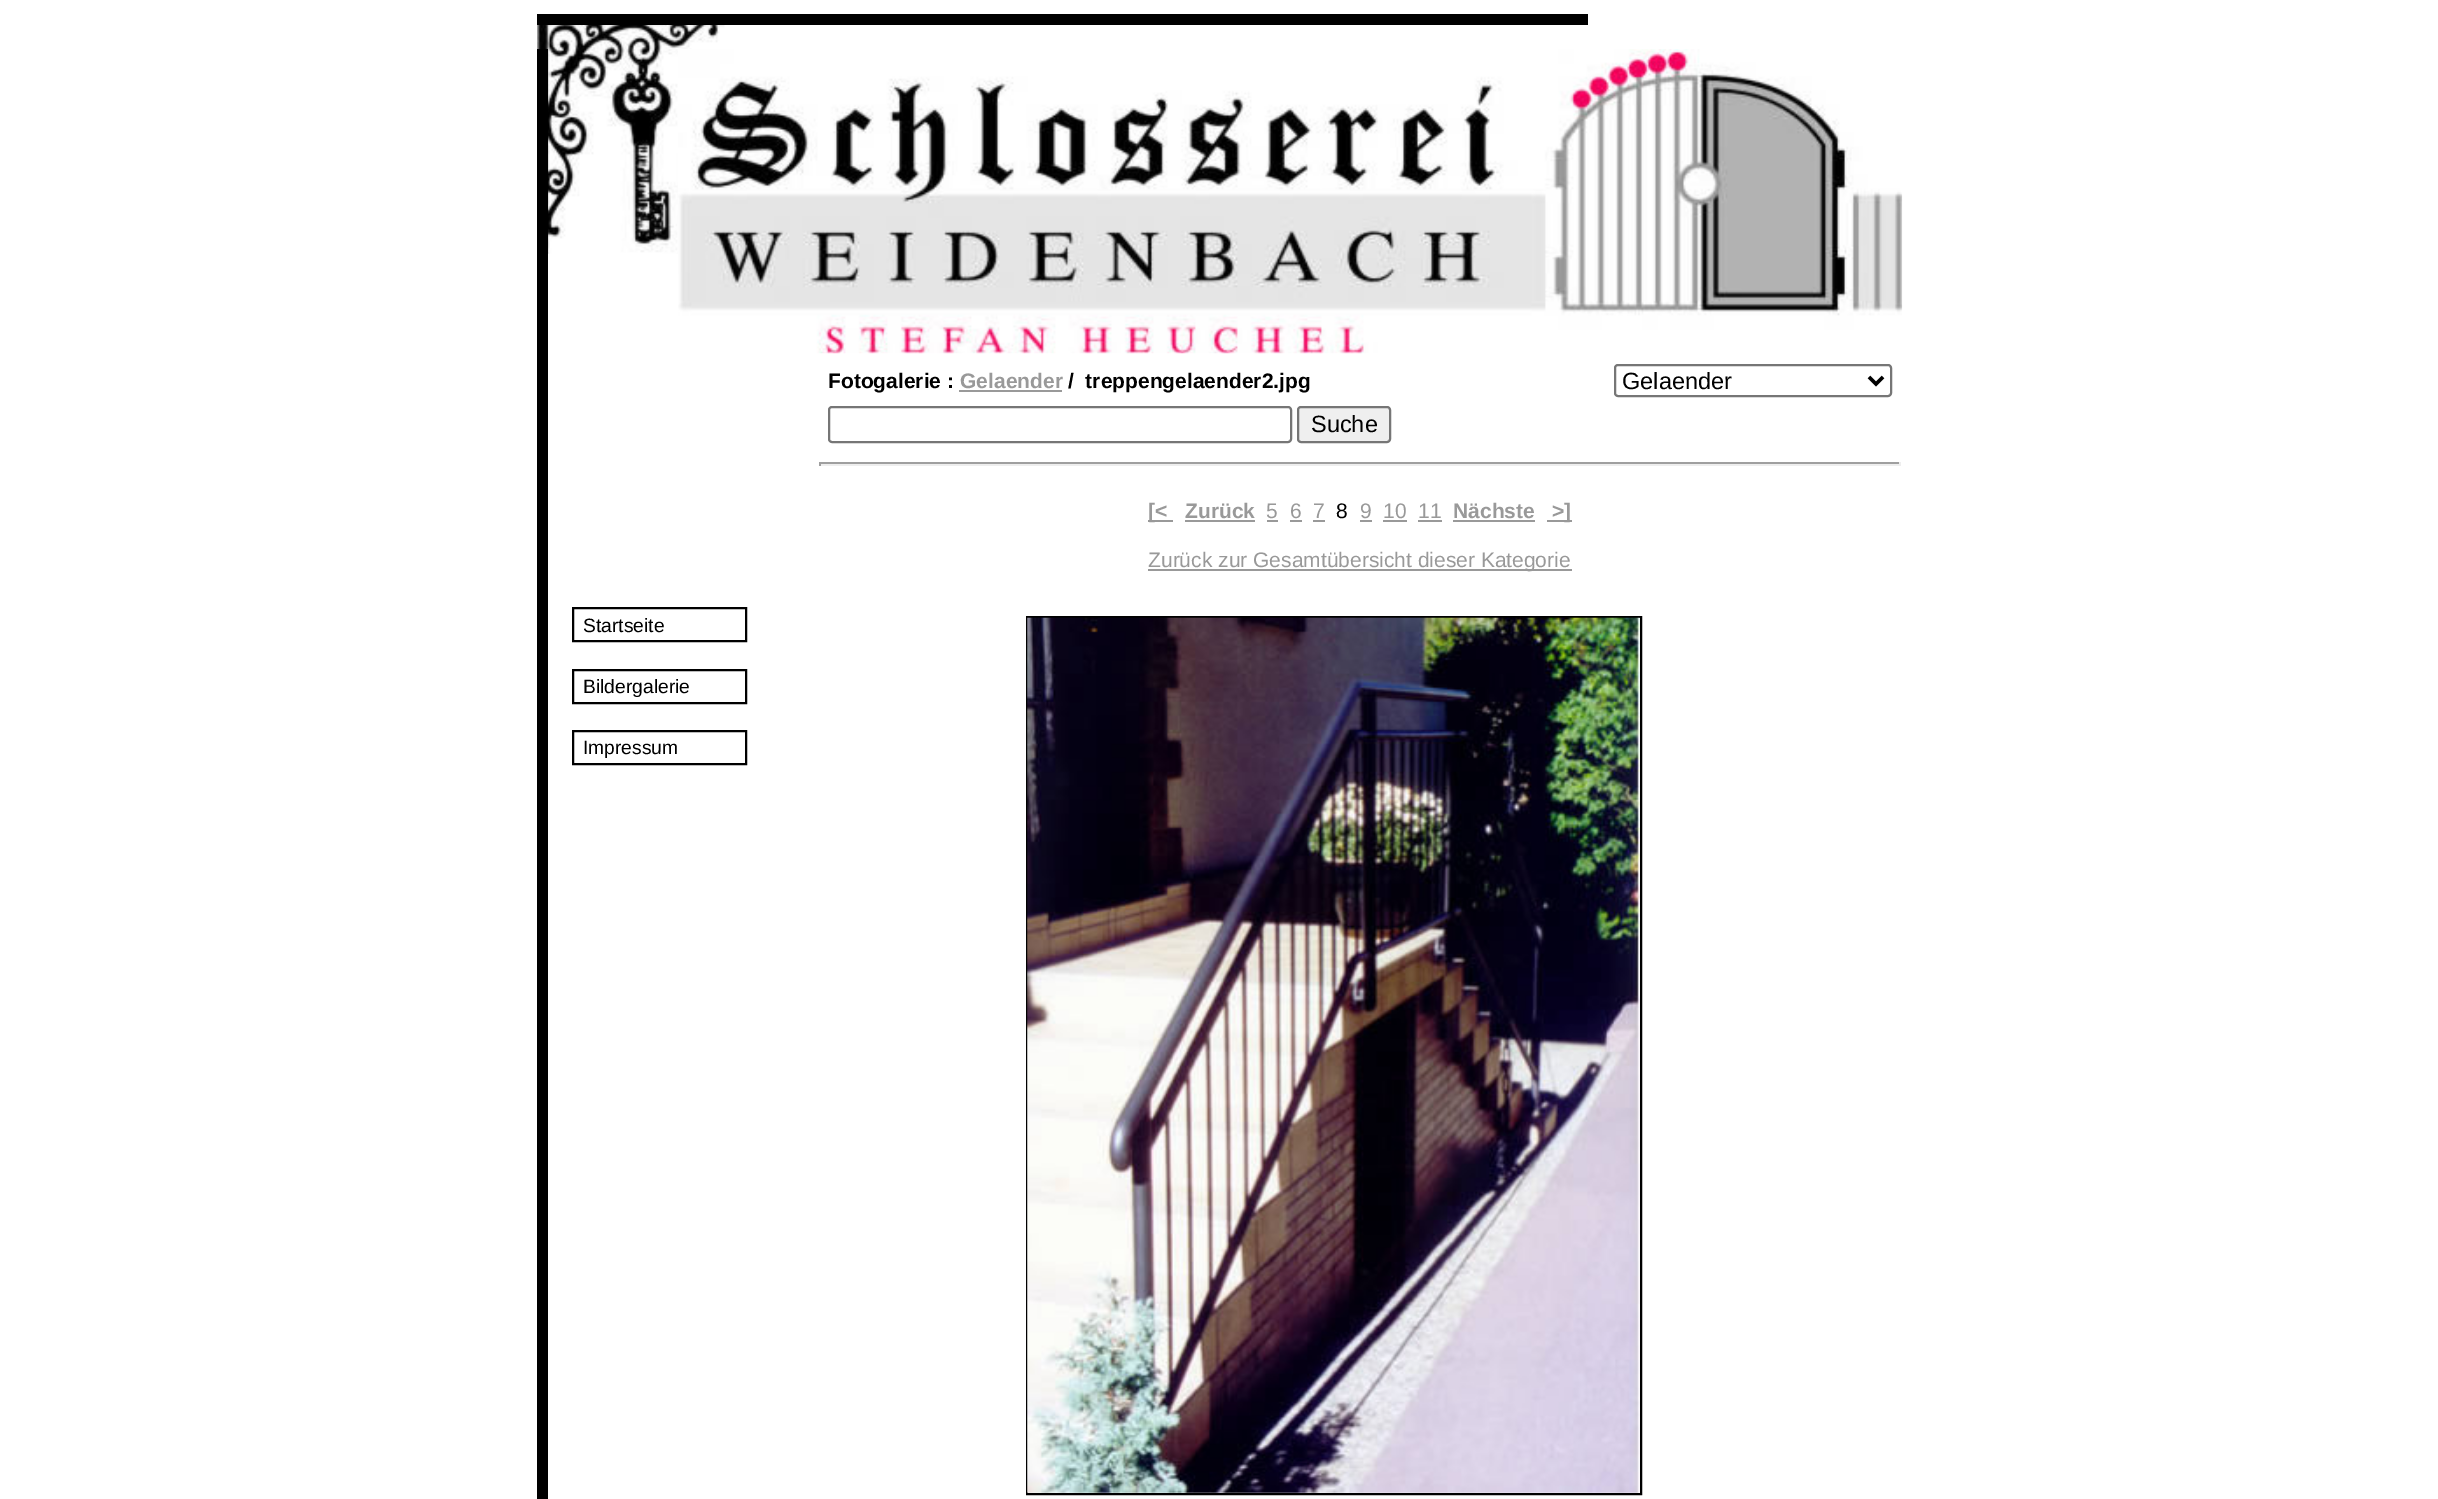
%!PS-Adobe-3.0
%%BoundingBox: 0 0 2438 1499
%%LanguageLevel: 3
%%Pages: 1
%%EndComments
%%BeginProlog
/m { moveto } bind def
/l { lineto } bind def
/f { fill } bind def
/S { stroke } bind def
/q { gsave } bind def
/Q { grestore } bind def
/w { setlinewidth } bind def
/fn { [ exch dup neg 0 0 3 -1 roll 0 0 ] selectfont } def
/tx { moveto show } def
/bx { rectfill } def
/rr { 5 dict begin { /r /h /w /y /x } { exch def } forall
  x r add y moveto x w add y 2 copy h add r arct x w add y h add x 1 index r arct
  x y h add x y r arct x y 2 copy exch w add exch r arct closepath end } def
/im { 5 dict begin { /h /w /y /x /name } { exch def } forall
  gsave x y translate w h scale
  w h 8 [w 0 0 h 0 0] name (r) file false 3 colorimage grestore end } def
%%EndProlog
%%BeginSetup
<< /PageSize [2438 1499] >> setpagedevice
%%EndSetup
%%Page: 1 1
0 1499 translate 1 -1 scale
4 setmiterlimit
1 setgray
0 0 2438 1499 bx
(image0.raw) 537 25 188 229 im
0 setgray
537 14 1051 11 bx
537 49 11 1450 bx
(image1.raw) 678 49 1225 305 im
/LiberationSans-Bold 21 fn
(Fotogalerie :) 828 388 tx
0.6 setgray
(Gelaender) 960 388 tx
959 390 103 2 bx
0 setgray
(/  treppengelaender2.jpg) 1068 388 tx
0.463 setgray
2 w
1615 365 276 31 3 rr S
0 setgray
3.5 w
1869 377 m 1876 384 l 1883 377 l S
/LiberationSans-Regular 23.5 fn
(Gelaender) 1622 389 tx
0.463 setgray
2 w
829 407 462 35 3 rr S
0.937 setgray
1298 407 92 35 3 rr q f Q
0.463 setgray
S
0 setgray
(Suche) 1311 432 tx
0.624 setgray
819 462 1082 2 bx
0.933 setgray
1899 462 2 4 bx
819 464 1082 2 bx
0.624 setgray
819 462 2 4 bx
0.6 setgray
1148 520 25 2 bx
/LiberationSans-Bold 21 fn
([<) 1148 518 tx
(Zurück) 1185 518 tx
1185 520 70 2 bx
/LiberationSans-Regular 21 fn
(5) 1266 518 tx
1267 520 11 2 bx
(6) 1290 518 tx
1290 520 12 2 bx
(7) 1313 518 tx
1313 520 12 2 bx
0 setgray
(8) 1336 518 tx
0.6 setgray
(9) 1360 518 tx
1360 520 12 2 bx
(10) 1383 518 tx
1383 520 24 2 bx
(11) 1418 518 tx
1418 520 24 2 bx
/LiberationSans-Bold 21 fn
(Nächste) 1453 518 tx
1453 520 82 2 bx
1547 520 25 2 bx
(>]) 1552 518 tx
1148 569 424 2 bx
/LiberationSans-Regular 21 fn
(Zurück zur Gesamtübersicht dieser Kategorie) 1148 567 tx
0 setgray
1027 617 614 877 rectstroke
(image2.raw) 1027 617 613 876 im
573 608 173 33 rectstroke
/LiberationSans-Regular 19.25 fn
(Startseite) 583 632 tx
573 670 173 33 rectstroke
(Bildergalerie) 583 693 tx
573 731 173 33 rectstroke
(Impressum) 583 754 tx
showpage
%%EOF
